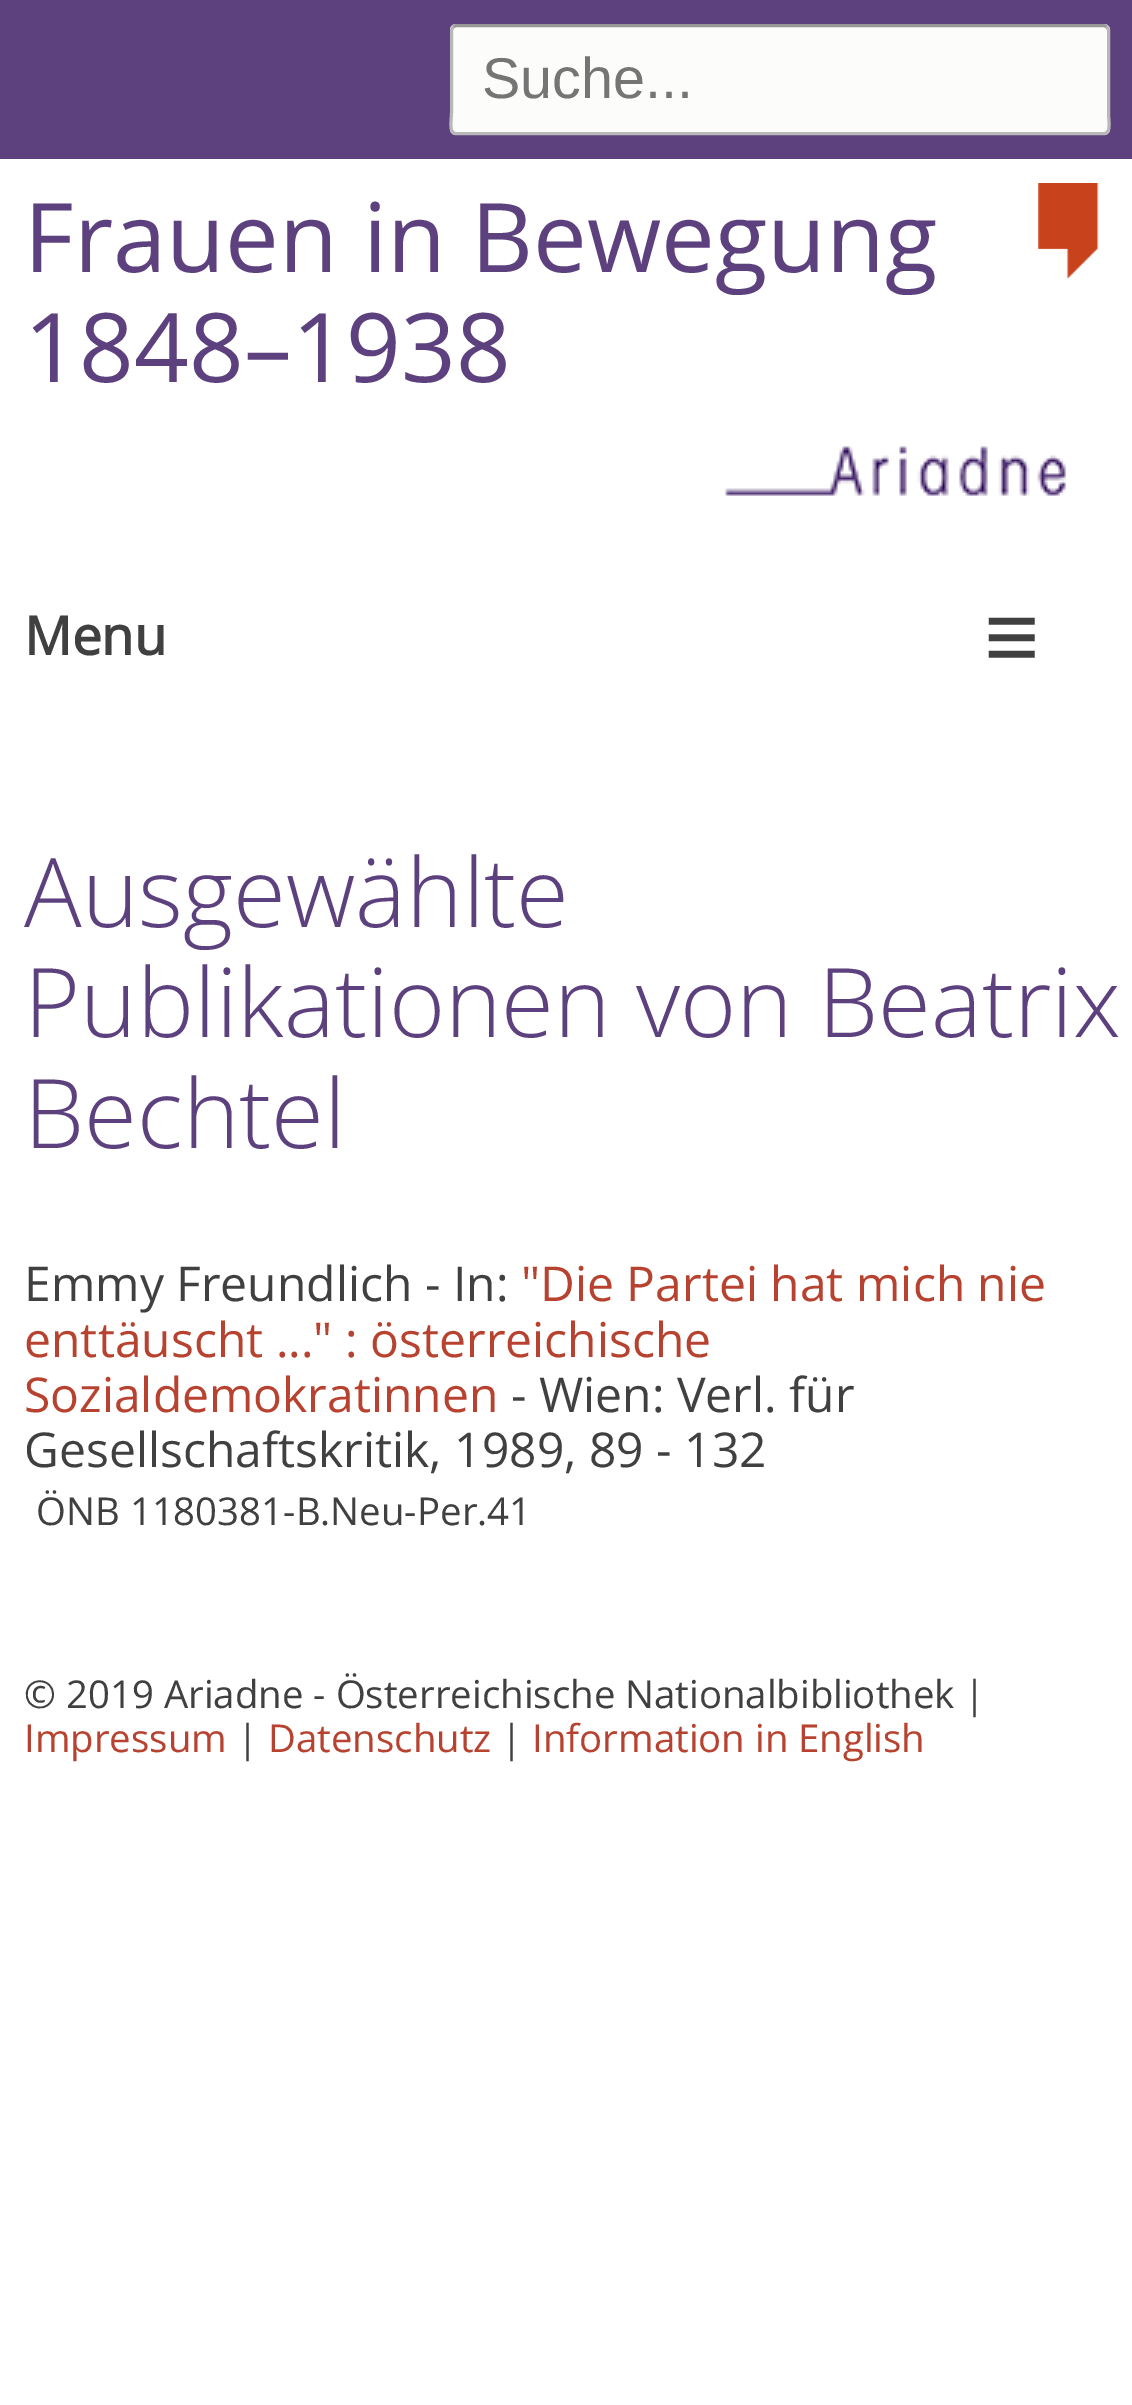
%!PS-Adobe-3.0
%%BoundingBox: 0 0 1132 2405
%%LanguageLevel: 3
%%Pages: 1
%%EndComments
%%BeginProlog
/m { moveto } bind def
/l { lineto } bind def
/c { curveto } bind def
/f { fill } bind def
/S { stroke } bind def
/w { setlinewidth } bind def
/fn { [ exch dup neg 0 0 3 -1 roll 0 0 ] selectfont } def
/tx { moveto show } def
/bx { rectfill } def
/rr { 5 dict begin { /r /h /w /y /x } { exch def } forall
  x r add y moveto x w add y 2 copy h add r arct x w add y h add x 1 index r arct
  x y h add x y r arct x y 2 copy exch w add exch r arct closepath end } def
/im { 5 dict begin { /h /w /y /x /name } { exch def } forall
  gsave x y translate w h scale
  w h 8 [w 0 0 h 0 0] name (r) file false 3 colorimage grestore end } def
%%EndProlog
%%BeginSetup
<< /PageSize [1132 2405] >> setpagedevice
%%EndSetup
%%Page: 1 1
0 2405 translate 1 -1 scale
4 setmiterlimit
1 setgray
0 0 1132 2405 bx
0.365 0.255 0.494 setrgbcolor
0 0 1132 159 bx
0.988 0.988 0.98 setrgbcolor
450 24 660 111 6 rr f
0.6 setgray
3 w
453 27 m 456 25.5 l 1104 25.5 l 1107 27 l S
0.722 setgray
1107 27 m 1108.5 30 l 1108.5 112.5 l 1108.5 120.5 1111.5 133.5 1104 133.5 c 456 133.5 l 448.5 133.5 451.5 120.5 451.5 112.5 c 451.5 30 l 453 27 l S
/LiberationSans-Regular 57.5 fn
0.459 setgray
(Suche...) 482 98 tx
/OpenSans-Regular 96 fn
0.365 0.255 0.494 setrgbcolor
(Frauen in Bewegung) 24 272 tx
(1848–1938) 24 382 tx
(image0.raw) 1038 183 61 96 im
(image1.raw) 725 446 341 50 im
/OpenSans-Bold 53 fn
0.251 setgray
(Menu) 24 655 tx
/LiberationSans-Bold 95 fn
(≡) 984 669 tx
/OpenSans-Light 96 fn
0.365 0.255 0.494 setrgbcolor
(Ausgewählte) 24 927 tx
(Publikationen von Beatrix) 24 1037 tx
(Bechtel) 24 1148 tx
/OpenSans-Regular 48 fn
0.251 setgray
(Emmy Freundlich - In:) 24 1301 tx
0.718 0.259 0.184 setrgbcolor
("Die Partei hat mich nie) 521 1301 tx
(enttäuscht ..." : österreichische) 24 1357 tx
(Sozialdemokratinnen) 24 1412 tx
0.251 setgray
(- Wien: Verl. für) 511 1412 tx
(Gesellschaftskritik, 1989, 89 - 132) 24 1467 tx
/OpenSans-Regular 38.4 fn
(ÖNB 1180381-B.Neu-Per.41) 36 1525 tx
(© 2019 Ariadne - Österreichische Nationalbibliothek |) 24 1708 tx
0.718 0.259 0.184 setrgbcolor
(Impressum) 24 1752 tx
0.251 setgray
(|) 237 1752 tx
0.718 0.259 0.184 setrgbcolor
(Datenschutz) 268 1752 tx
0.251 setgray
(|) 501 1752 tx
0.718 0.259 0.184 setrgbcolor
(Information in English) 532 1752 tx
showpage
%%EOF
